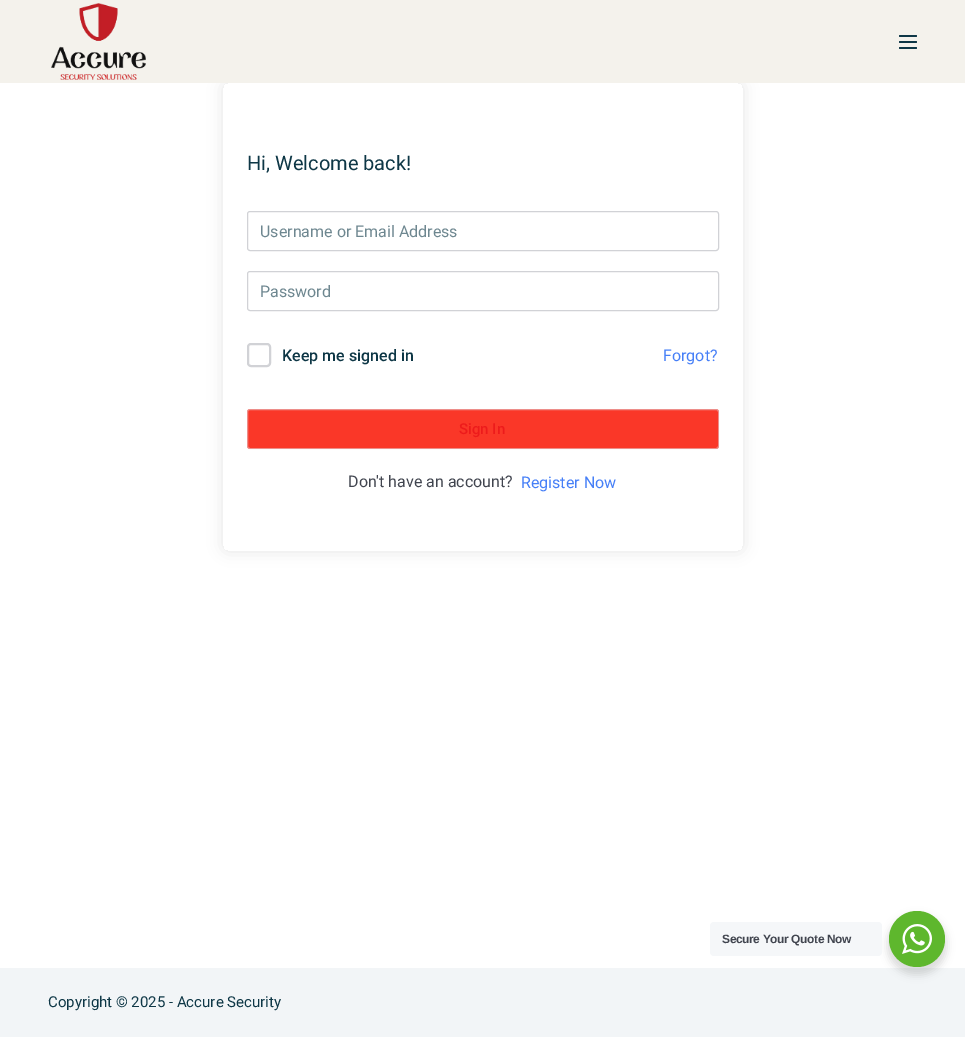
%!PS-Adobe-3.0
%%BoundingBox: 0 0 965 1037
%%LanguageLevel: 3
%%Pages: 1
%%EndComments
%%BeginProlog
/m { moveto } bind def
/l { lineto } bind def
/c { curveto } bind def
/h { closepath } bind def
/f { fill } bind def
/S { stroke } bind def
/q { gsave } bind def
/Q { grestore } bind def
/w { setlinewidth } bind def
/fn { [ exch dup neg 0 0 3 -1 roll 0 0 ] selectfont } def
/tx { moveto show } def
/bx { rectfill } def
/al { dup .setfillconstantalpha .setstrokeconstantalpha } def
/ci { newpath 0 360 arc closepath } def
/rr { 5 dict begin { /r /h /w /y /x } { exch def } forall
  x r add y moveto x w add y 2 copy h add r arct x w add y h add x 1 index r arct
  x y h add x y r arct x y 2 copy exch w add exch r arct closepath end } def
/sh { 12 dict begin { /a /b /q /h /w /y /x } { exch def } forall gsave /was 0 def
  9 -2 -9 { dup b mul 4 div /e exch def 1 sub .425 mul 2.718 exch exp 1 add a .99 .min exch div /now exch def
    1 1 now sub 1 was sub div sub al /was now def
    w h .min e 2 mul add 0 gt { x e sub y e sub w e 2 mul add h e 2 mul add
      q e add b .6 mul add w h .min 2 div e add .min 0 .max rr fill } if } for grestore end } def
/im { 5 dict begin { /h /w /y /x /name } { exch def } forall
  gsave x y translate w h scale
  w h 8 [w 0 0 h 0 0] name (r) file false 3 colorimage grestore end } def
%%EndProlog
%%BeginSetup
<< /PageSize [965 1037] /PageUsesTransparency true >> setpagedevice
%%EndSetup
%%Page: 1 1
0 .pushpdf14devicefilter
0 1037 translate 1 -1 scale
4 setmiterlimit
1 setgray
0 0 965 1037 bx
q
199 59 m 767 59 l 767 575 l 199 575 l h 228 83 m 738 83 l 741 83 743 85 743 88 c 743 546 l 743 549 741 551 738 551 c 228 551 l 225 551 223 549 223 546 c 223 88 l 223 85 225 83 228 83 c h eoclip newpath
0 setgray
223 83 520 468 5 7.5 0.1 sh
Q
0.957 0.949 0.925 setrgbcolor
0 0 965 83 bx
(image0.raw) 51 3 95 77 im
0.055 0.216 0.275 setrgbcolor
899 35 18 2 1 rr f
899 41 18 2 1 rr f
899 47 18 2 1 rr f
/Roboto-Regular 20 fn
(Hi, Welcome back!) 247 170 tx
0.82 0.824 0.839 setrgbcolor
247.5 211.5 471 39 2.5 rr S
/Roboto-Regular 16 fn
0.431 0.529 0.565 setrgbcolor
(Username or Email Address) 260 237 tx
0.82 0.824 0.839 setrgbcolor
247.5 271.5 471 39 2.5 rr S
0.431 0.529 0.565 setrgbcolor
(Password) 260 297 tx
0.82 0.824 0.839 setrgbcolor
2 w
248 344 22 22 3 rr S
/Roboto-Medium 16 fn
0.055 0.216 0.275 setrgbcolor
(Keep me signed in) 282 361 tx
/Roboto-Regular 16 fn
0.275 0.498 0.969 setrgbcolor
(Forgot?) 663 361 tx
0.98 0.216 0.157 setrgbcolor
247 409 472 40 3 rr f
0.5 al
0.878 0.898 0.922 setrgbcolor
1 w
247.5 409.5 471 39 2.5 rr S
/Roboto-Medium 15 fn
1 al
0.929 0.106 0.106 setrgbcolor
(Sign In) 459 434 tx
/Roboto-Regular 16 fn
0.255 0.271 0.31 setrgbcolor
(Don't have an account?) 348 487 tx
0.275 0.498 0.969 setrgbcolor
(Register Now) 521 488 tx
0.949 0.961 0.969 setrgbcolor
0 968 965 69 bx
/Roboto-Regular 15 fn
0.055 0.216 0.275 setrgbcolor
(Copyright © 2025 - Accure Security) 48 1007 tx
0 setgray
887 915 60 60 30 4 0.14 sh
0.961 0.969 0.976 setrgbcolor
710 922 172 34 4 rr f
/LiberationSans-Bold 12 fn
0.255 0.271 0.31 setrgbcolor
722 943 m -0.4 0 (Secure Your Quote Now) ashow
0.369 0.718 0.176 setrgbcolor
917 939 28 ci f
(image1.raw) 902 924 30 30 im
.poppdf14devicefilter showpage
%%EOF
